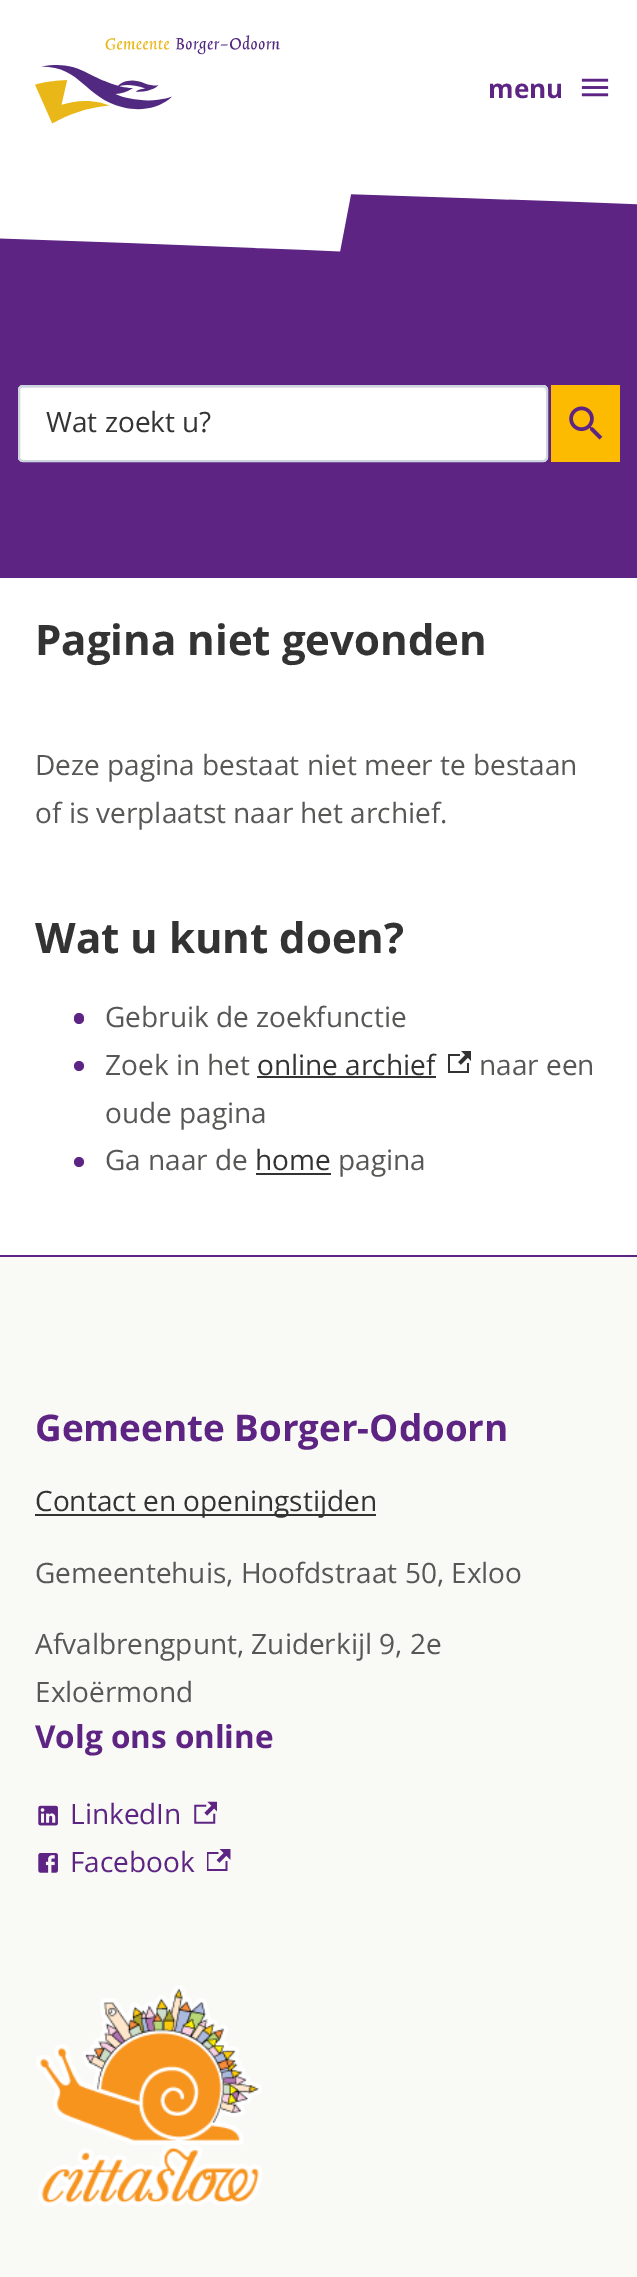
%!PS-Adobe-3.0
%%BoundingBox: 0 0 637 2277
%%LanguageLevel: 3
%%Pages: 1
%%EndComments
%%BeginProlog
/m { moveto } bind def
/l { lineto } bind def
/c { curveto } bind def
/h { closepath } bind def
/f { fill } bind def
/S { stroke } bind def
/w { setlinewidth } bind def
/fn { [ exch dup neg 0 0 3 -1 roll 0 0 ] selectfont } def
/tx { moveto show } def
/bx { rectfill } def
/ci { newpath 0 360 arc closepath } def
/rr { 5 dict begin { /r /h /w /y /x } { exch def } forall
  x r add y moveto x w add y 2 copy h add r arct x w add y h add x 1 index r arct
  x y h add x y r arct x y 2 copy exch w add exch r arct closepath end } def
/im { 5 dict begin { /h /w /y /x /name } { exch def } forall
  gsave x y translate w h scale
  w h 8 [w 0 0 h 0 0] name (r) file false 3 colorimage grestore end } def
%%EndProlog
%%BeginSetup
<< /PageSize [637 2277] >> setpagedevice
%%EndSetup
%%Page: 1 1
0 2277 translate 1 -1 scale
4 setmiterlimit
1 setgray
0 0 637 2277 bx
(image0.raw) 35 35 245 89 im
/OpenSans-Bold 26 fn
0.365 0.141 0.514 setrgbcolor
(menu) 488 98 tx
(image1.raw) 581 78 28 19 im
0 194 637 384 bx
(image2.raw) 0 193 637 59 im
1 setgray
18 385 530 77 5 rr f
0.922 setgray
23 388 m 542 388 l 544 388 546 390 546 392 c 546 391 l 546 389 544 387 542 387 c 23 387 l 21 387 19 389 19 391 c 19 392 l 19 390 21 388 23 388 c h f
0.8 0.835 0.867 setrgbcolor
2 w
19 386 528 75 4 rr S
/OpenSans-Regular 28 fn
0.2 setgray
(Wat zoekt u?) 46 432 tx
0.988 0.729 0 setrgbcolor
551 385 69 77 bx
(image3.raw) 569 406 34 34 im
/OpenSans-Bold 42 fn
0.2 setgray
(Pagina niet gevonden) 35 655 tx
/OpenSans-Regular 28 fn
0.341 0.341 0.337 setrgbcolor
(Deze pagina bestaat niet meer te bestaan) 35 775 tx
(of is verplaatst naar het archief.) 35 823 tx
/OpenSans-Bold 42 fn
0.2 setgray
(Wat u kunt doen?) 35 953 tx
0.365 0.141 0.514 setrgbcolor
74 1013 10 11 5 rr f
/OpenSans-Regular 28 fn
0.341 0.341 0.337 setrgbcolor
(Gebruik de zoekfunctie) 105 1027 tx
0.365 0.141 0.514 setrgbcolor
79 1066 5 ci f
0.341 0.341 0.337 setrgbcolor
(Zoek in het) 105 1075 tx
0.2 setgray
(online archief) 257 1075 tx
257 1076 179 2 bx
(image4.raw) 448 1051 23 22 im
0.341 0.341 0.337 setrgbcolor
(naar een) 479 1075 tx
(oude pagina) 105 1123 tx
0.365 0.141 0.514 setrgbcolor
79 1162 5 ci f
0.341 0.341 0.337 setrgbcolor
(Ga naar de) 105 1170 tx
0.2 setgray
(home) 255 1170 tx
256 1173 75 2 bx
0.341 0.341 0.337 setrgbcolor
(pagina) 338 1170 tx
0.976 0.976 0.965 setrgbcolor
0 1257 637 1020 bx
0.365 0.141 0.514 setrgbcolor
0 1255 637 2 bx
/OpenSans-Bold 36.75 fn
(Gemeente Borger-Odoorn) 35 1441 tx
0.2 setgray
35 1514 341 2 bx
/OpenSans-Regular 28 fn
(Contact en openingstijden) 35 1511 tx
0.341 0.341 0.337 setrgbcolor
(Gemeentehuis, Hoofdstraat 50, Exloo) 35 1583 tx
(Afvalbrengpunt, Zuiderkijl 9, 2e) 35 1654 tx
(Exloërmond) 35 1702 tx
/OpenSans-Bold 31.5 fn
0.365 0.141 0.514 setrgbcolor
(Volg ons online) 35 1748 tx
(image5.raw) 38 1805 20 21 im
/OpenSans-Regular 28 fn
(LinkedIn) 70 1824 tx
(image6.raw) 194 1801 23 23 im
(image7.raw) 38 1853 20 20 im
(Facebook) 70 1872 tx
(image8.raw) 207 1849 24 22 im
(image9.raw) 36 1985 226 222 im
showpage
%%EOF
